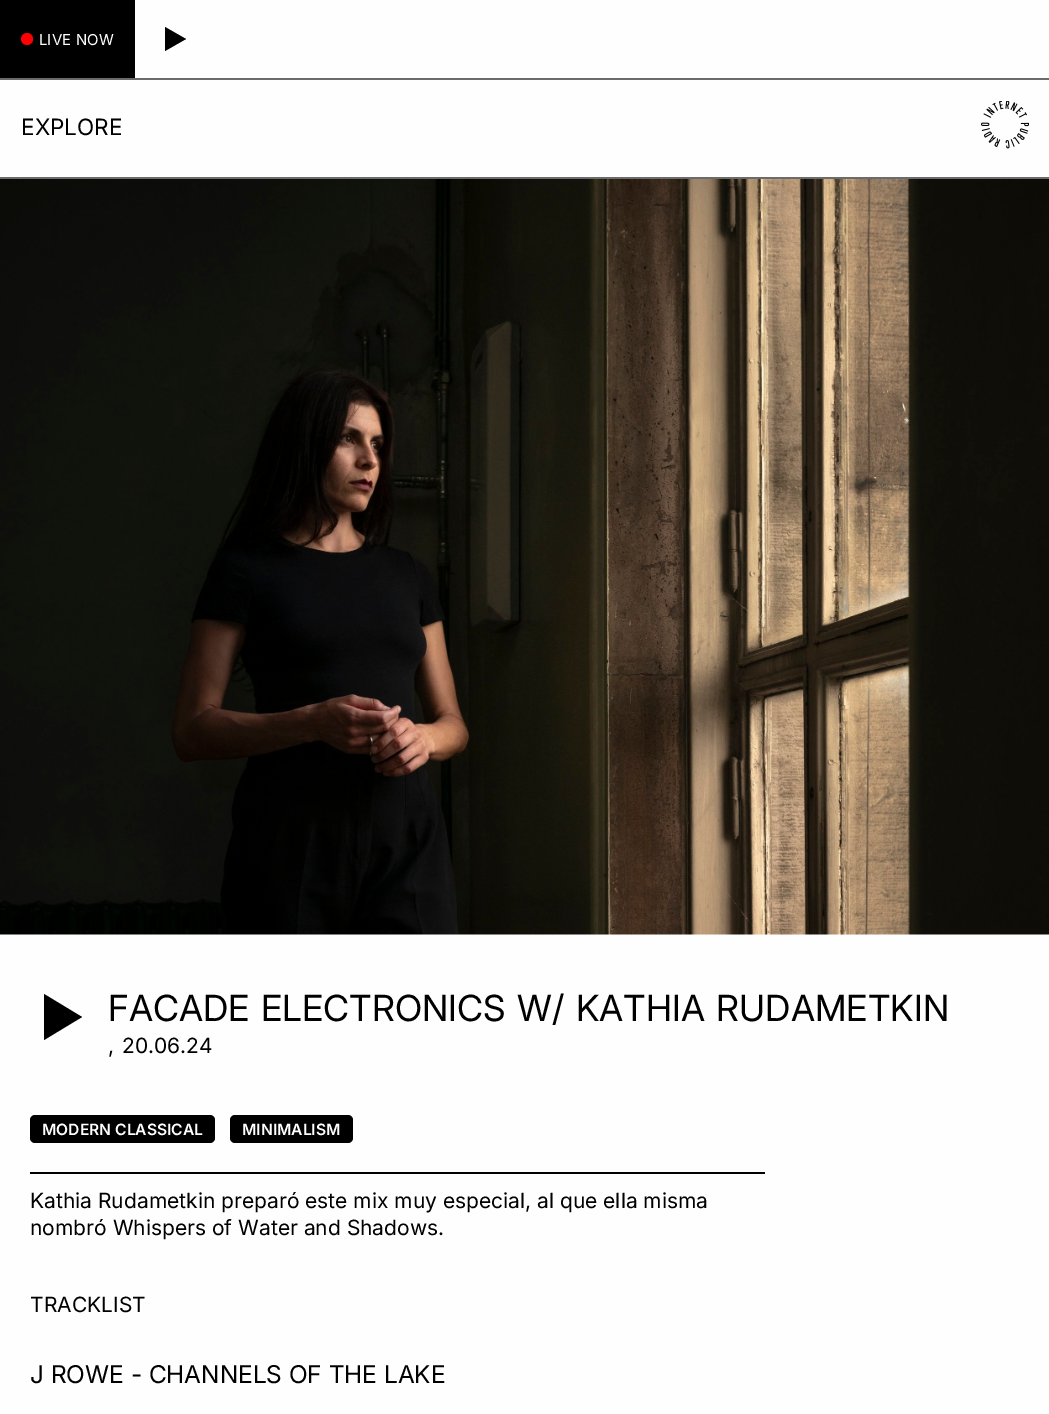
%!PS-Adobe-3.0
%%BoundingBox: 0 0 1049 1414
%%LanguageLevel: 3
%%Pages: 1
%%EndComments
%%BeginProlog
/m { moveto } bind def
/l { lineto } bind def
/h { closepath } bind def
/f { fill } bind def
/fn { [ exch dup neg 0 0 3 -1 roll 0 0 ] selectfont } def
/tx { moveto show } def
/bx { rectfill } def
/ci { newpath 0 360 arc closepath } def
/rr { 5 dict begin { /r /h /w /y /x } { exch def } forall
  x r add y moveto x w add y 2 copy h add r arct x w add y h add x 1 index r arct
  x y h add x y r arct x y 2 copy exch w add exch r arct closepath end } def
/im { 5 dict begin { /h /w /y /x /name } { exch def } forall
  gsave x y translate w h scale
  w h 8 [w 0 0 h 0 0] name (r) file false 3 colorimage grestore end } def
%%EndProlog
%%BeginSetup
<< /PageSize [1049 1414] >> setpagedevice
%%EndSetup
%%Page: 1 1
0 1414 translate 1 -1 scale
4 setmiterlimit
0.996 setgray
0 0 1049 1414 bx
0 setgray
0 0 135 78 bx
1 0 0 setrgbcolor
27 39 6 ci f
/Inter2-Regular 15 fn
1 setgray
39 45 m 1 0 32 (LIVE NOW) widthshow
0 setgray
165 27 m 186 39 l 165 51 l h f
0.42 setgray
0 78 1049 2 bx
0 177 1049 2 bx
/Inter2-Regular 22.5 fn
0 setgray
(EXPLORE) 21 135 tx
(image0.raw) 981 101 48 48 im
(image1.raw) 0 179 1049 756 im
44 994 m 44 1040 l 82 1017 l h f
/Inter-Regular 36 fn
108 1021 m 2 0 32 (FACADE ELECTRONICS W/ KATHIA RUDAMETKIN) widthshow
/Inter2-Regular 21 fn
108 1053 m 2 0 32 (, 20.06.24) widthshow
30 1115 185 28 5 rr f
/Inter-SemiBold 15.6 fn
1 setgray
(MODERN CLASSICAL) 42 1135 tx
0 setgray
230 1115 123 28 5 rr f
1 setgray
(MINIMALISM) 242 1135 tx
0 setgray
30 1172 735 2 bx
/Inter2-Regular 21 fn
(Kathia Rudametkin preparó este mix muy especial, al que ella misma) 30 1208 tx
(nombró Whispers of Water and Shadows.) 30 1235 tx
(TRACKLIST) 30 1312 tx
/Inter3-Regular 24.5 fn
(J ROWE - CHANNELS OF THE LAKE) 30 1383 tx
showpage
%%EOF
